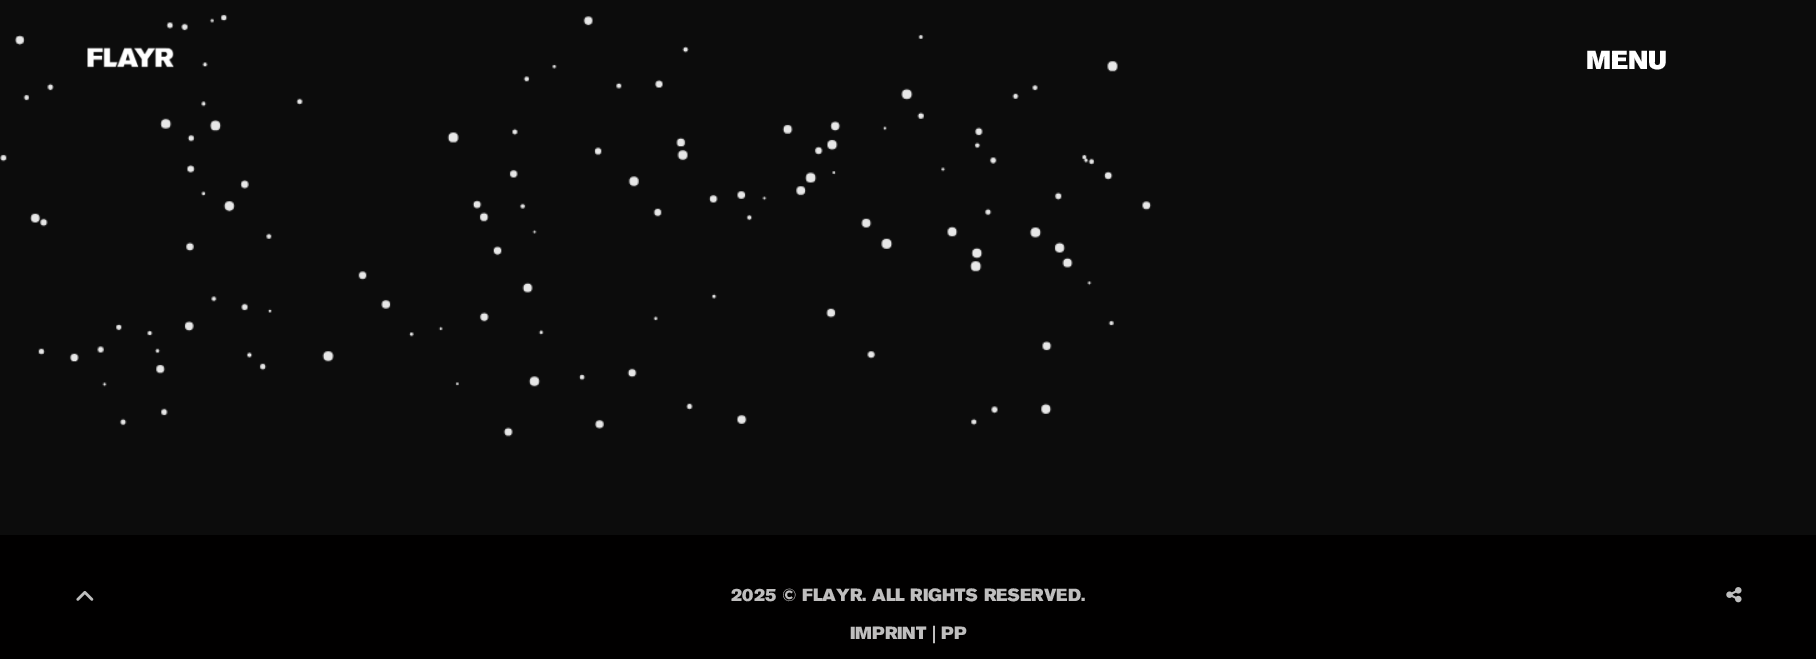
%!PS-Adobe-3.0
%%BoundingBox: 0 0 1816 659
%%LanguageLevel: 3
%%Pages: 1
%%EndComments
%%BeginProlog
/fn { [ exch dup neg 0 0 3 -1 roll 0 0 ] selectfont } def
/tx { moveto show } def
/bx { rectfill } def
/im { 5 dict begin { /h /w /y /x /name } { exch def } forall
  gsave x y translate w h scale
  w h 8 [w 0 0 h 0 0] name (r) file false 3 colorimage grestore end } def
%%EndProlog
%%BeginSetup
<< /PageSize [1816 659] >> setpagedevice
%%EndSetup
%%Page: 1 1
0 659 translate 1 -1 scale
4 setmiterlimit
0.047 setgray
0 0 1816 659 bx
(image1.raw) 87 47 87 21 im
(image0.raw) 0 14 1152 423 im
/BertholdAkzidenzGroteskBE-Regular 26 fn
1 setgray
(MENU) 1586 69 tx
0.004 0 0 setrgbcolor
0 535 1816 124 bx
(image2.raw) 76 591 18 10 im
/BertholdAkzidenzGroteskBE-Regular 17.5 fn
0.749 0.745 0.745 setrgbcolor
(2025 © FLAYR. ALL RIGHTS RESERVED.) 731 601 tx
(IMPRINT | PP) 850 639 tx
(image3.raw) 1726 587 16 16 im
showpage
%%EOF
